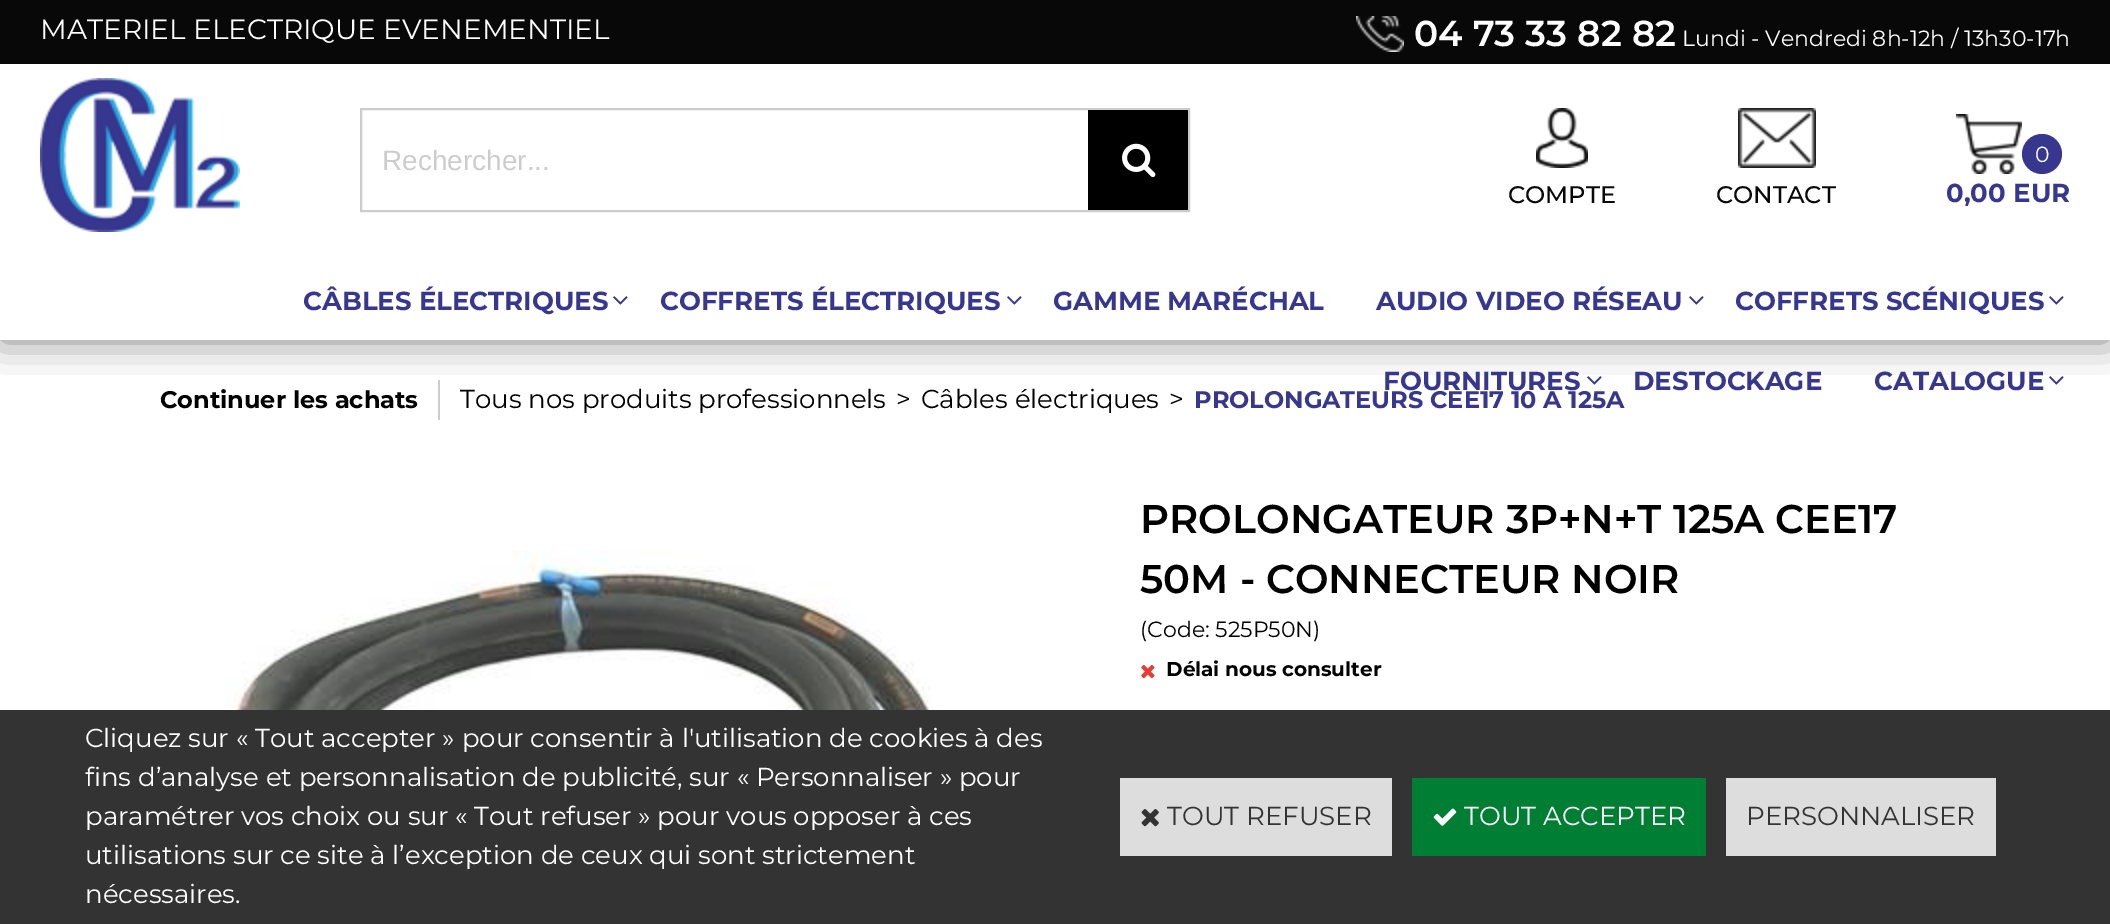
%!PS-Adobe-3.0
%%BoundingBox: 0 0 2110 924
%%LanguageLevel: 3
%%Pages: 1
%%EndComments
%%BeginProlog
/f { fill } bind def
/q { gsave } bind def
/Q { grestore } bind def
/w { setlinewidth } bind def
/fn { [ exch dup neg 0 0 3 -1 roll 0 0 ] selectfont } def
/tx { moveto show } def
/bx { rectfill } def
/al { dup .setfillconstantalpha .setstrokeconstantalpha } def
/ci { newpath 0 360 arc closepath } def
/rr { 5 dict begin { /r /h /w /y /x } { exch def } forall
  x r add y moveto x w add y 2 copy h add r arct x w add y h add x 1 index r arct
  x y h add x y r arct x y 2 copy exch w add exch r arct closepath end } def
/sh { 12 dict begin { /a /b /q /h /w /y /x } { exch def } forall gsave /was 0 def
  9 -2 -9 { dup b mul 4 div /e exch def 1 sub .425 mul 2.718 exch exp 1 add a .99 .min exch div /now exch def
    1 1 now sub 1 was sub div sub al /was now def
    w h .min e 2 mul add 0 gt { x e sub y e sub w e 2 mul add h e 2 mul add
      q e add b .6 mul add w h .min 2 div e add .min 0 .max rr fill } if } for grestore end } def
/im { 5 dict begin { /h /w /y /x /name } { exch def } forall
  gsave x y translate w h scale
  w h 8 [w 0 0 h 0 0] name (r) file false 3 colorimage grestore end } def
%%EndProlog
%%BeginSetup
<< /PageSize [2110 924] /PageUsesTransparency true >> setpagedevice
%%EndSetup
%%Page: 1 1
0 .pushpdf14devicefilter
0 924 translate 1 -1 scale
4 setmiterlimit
1 setgray
0 0 2110 924 bx
q
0 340 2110 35 rectclip
0 setgray
0 0 2110 340 0 20 0.5 sh
Q
0.031 0.031 0.035 setrgbcolor
0 0 2110 64 bx
/Montserrat-Regular 28 fn
1 setgray
(MATERIEL ELECTRIQUE EVENEMENTIEL) 40 39 tx
(image0.raw) 1356 16 48 36 im
/Montserrat-SemiBold 36 fn
(04 73 33 82 82) 1414 46 tx
/Montserrat-Regular 22 fn
(Lundi - Vendredi 8h-12h / 13h30-17h) 1682 46 tx
(image1.raw) 40 78 200 154 im
0.8 setgray
2 w
361 109 828 102 rectstroke
/LiberationSans-Regular 28 fn
(Rechercher...) 382 170 tx
0 setgray
1088 110 100 100 bx
(image2.raw) 1122 143 34 35 im
(image3.raw) 1956 114 66 60 im
0.216 0.216 0.561 setrgbcolor
2042 154 20 ci f
/Montserrat-Regular 22 fn
1 setgray
(0) 2035 162 tx
/Montserrat-Bold 26 fn
0.216 0.216 0.561 setrgbcolor
(0,00 EUR) 1946 202 tx
(image4.raw) 1536 108 52 60 im
/Montserrat-Medium 24 fn
0.031 0.031 0.035 setrgbcolor
(COMPTE) 1508 203 tx
(image5.raw) 1738 108 78 60 im
(CONTACT) 1716 203 tx
/Montserrat-Bold 26 fn
0.216 0.216 0.561 setrgbcolor
(CÂBLES ÉLECTRIQUES) 303 310 tx
(image6.raw) 613 296 15 9 im
(COFFRETS ÉLECTRIQUES) 660 310 tx
(image6.raw) 1007 296 15 9 im
(GAMME MARÉCHAL) 1053 310 tx
(AUDIO VIDEO RÉSEAU) 1376 310 tx
(image6.raw) 1689 296 15 9 im
(COFFRETS SCÉNIQUES) 1735 310 tx
(image6.raw) 2049 296 15 9 im
1 setgray
30 380 2050 1 bx
0.216 0.216 0.561 setrgbcolor
(FOURNITURES) 1383 390 tx
(image7.raw) 1587 376 15 9 im
(DESTOCKAGE) 1633 390 tx
(CATALOGUE) 1874 390 tx
(image7.raw) 2049 376 15 9 im
/Montserrat-Bold 24 fn
0 setgray
(Continuer les achats) 160 408 tx
0.8 setgray
438 380 2 40 bx
/Montserrat-Regular 26 fn
0 setgray
(Tous nos produits professionnels) 460 408 tx
(>) 896 408 tx
(Câbles électriques) 921 408 tx
(>) 1169 408 tx
/Montserrat-Bold 24 fn
0.216 0.216 0.561 setrgbcolor
(PROLONGATEURS CEE17 10 À 125A) 1194 408 tx
(image8.raw) 225 550 721 160 im
/Montserrat-SemiBold 40 fn
0 setgray
(PROLONGATEUR 3P+N+T 125A CEE17) 1140 533 tx
(50M - CONNECTEUR NOIR) 1140 593 tx
/Montserrat-Regular 22 fn
(\(Code: 525P50N\)) 1140 637 tx
(image9.raw) 1141 665 14 14 im
/Montserrat-Bold 20 fn
(Délai nous consulter) 1166 676 tx
0.2 setgray
0 710 2110 214 bx
/Montserrat-Regular 26 fn
1 setgray
(Cliquez sur « Tout accepter » pour consentir à l'utilisation de cookies à des) 85 747 tx
(fins d’analyse et personnalisation de publicité, sur « Personnaliser » pour) 85 786 tx
(paramétrer vos choix ou sur « Tout refuser » pour vous opposer à ces) 85 825 tx
(utilisations sur ce site à l’exception de ceux qui sont strictement) 85 864 tx
(nécessaires.) 85 903 tx
0.867 setgray
1120 778 272 78 bx
(image10.raw) 1141 809 18 18 im
0.2 setgray
(TOUT REFUSER) 1167 825 tx
0 0.494 0.2 setrgbcolor
1412 778 294 78 bx
(image11.raw) 1433 808 24 18 im
1 setgray
(TOUT ACCEPTER) 1464 825 tx
0.867 setgray
1726 778 270 78 bx
0.2 setgray
(PERSONNALISER) 1746 825 tx
.poppdf14devicefilter showpage
%%EOF
